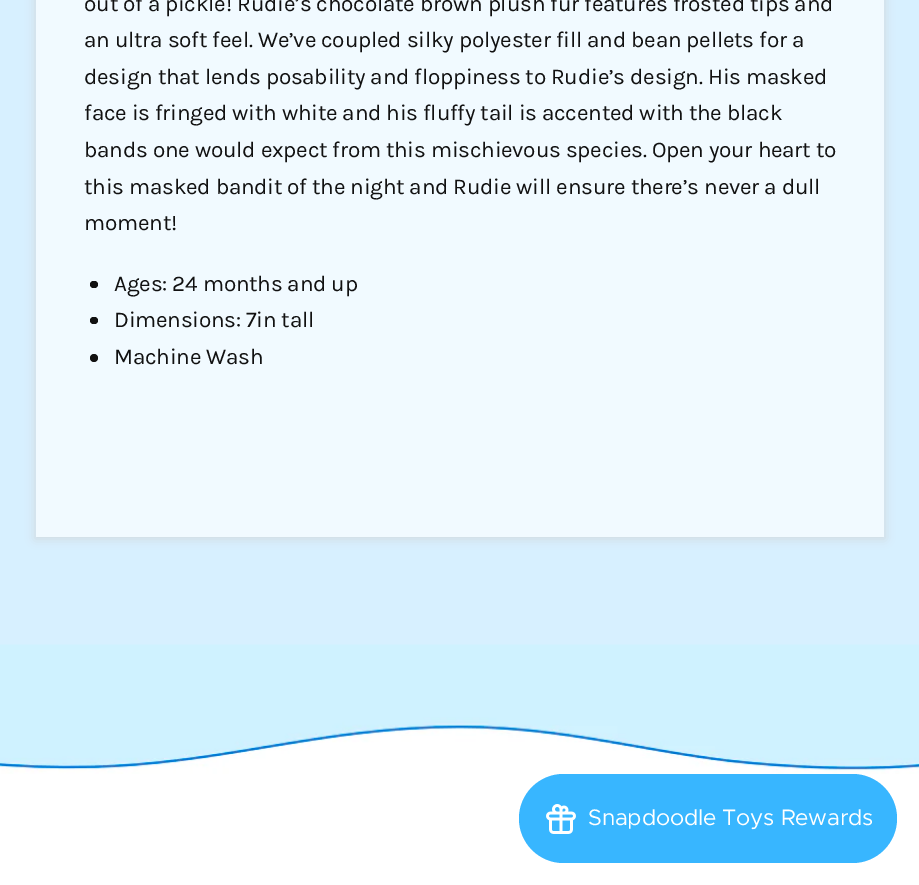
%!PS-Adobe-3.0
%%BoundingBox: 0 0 919 885
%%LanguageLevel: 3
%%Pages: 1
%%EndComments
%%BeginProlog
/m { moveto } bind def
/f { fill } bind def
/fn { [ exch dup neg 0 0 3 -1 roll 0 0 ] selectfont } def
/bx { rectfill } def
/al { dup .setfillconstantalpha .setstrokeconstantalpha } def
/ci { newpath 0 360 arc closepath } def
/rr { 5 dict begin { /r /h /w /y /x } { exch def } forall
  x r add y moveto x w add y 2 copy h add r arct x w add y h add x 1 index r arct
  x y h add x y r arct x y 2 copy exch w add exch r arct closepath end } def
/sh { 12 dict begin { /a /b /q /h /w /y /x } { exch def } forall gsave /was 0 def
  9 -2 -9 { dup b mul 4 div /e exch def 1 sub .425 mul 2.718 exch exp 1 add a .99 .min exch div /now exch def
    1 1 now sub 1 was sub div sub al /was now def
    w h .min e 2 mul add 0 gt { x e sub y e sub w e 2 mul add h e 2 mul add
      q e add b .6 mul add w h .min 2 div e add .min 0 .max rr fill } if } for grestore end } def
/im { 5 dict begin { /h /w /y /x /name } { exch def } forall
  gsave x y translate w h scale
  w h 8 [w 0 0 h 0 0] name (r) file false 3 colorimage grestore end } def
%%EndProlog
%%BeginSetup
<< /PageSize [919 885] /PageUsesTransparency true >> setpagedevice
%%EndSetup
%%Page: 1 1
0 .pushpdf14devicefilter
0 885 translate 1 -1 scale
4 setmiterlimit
1 setgray
0 0 919 885 bx
0.843 0.941 1 setrgbcolor
0 0 919 645 bx
0.816 0.847 0.859 setrgbcolor
35 -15 850 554 0 5 1 sh
0.945 0.98 1 setrgbcolor
36 0 848 537 bx
/Karla-Regular 22.5 fn
0.067 setgray
84 11 m -0.2 0 (out of a pickle! Rudie’s chocolate brown plush fur features frosted tips and) ashow
84 47 m -0.2 0 (an ultra soft feel. We’ve coupled silky polyester fill and bean pellets for a) ashow
84 84 m -0.2 0 (design that lends posability and floppiness to Rudie’s design. His masked) ashow
84 120 m -0.2 0 (face is fringed with white and his fluffy tail is accented with the black) ashow
84 157 m -0.2 0 (bands one would expect from this mischievous species. Open your heart to) ashow
84 194 m -0.2 0 (this masked bandit of the night and Rudie will ensure there’s never a dull) ashow
84 230 m -0.2 0 (moment!) ashow
90 281 8 7 3.5 rr f
114 291 m -0.2 0 (Ages: 24 months and up) ashow
90 317 8 7 3.5 rr f
114 327 m -0.2 0 (Dimensions: 7in tall) ashow
94 358 4 ci f
114 364 m -0.2 0 (Machine Wash) ashow
(image0.raw) 0 644 919 130 im
0.22 0.714 1 setrgbcolor
519 774 378 89 44.5 rr f
(image1.raw) 546 804 30 30 im
/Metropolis-Regular 22.5 fn
1 setgray
588 825 m -0.2 0 (Snapdoodle Toys Rewards) ashow
.poppdf14devicefilter showpage
%%EOF
